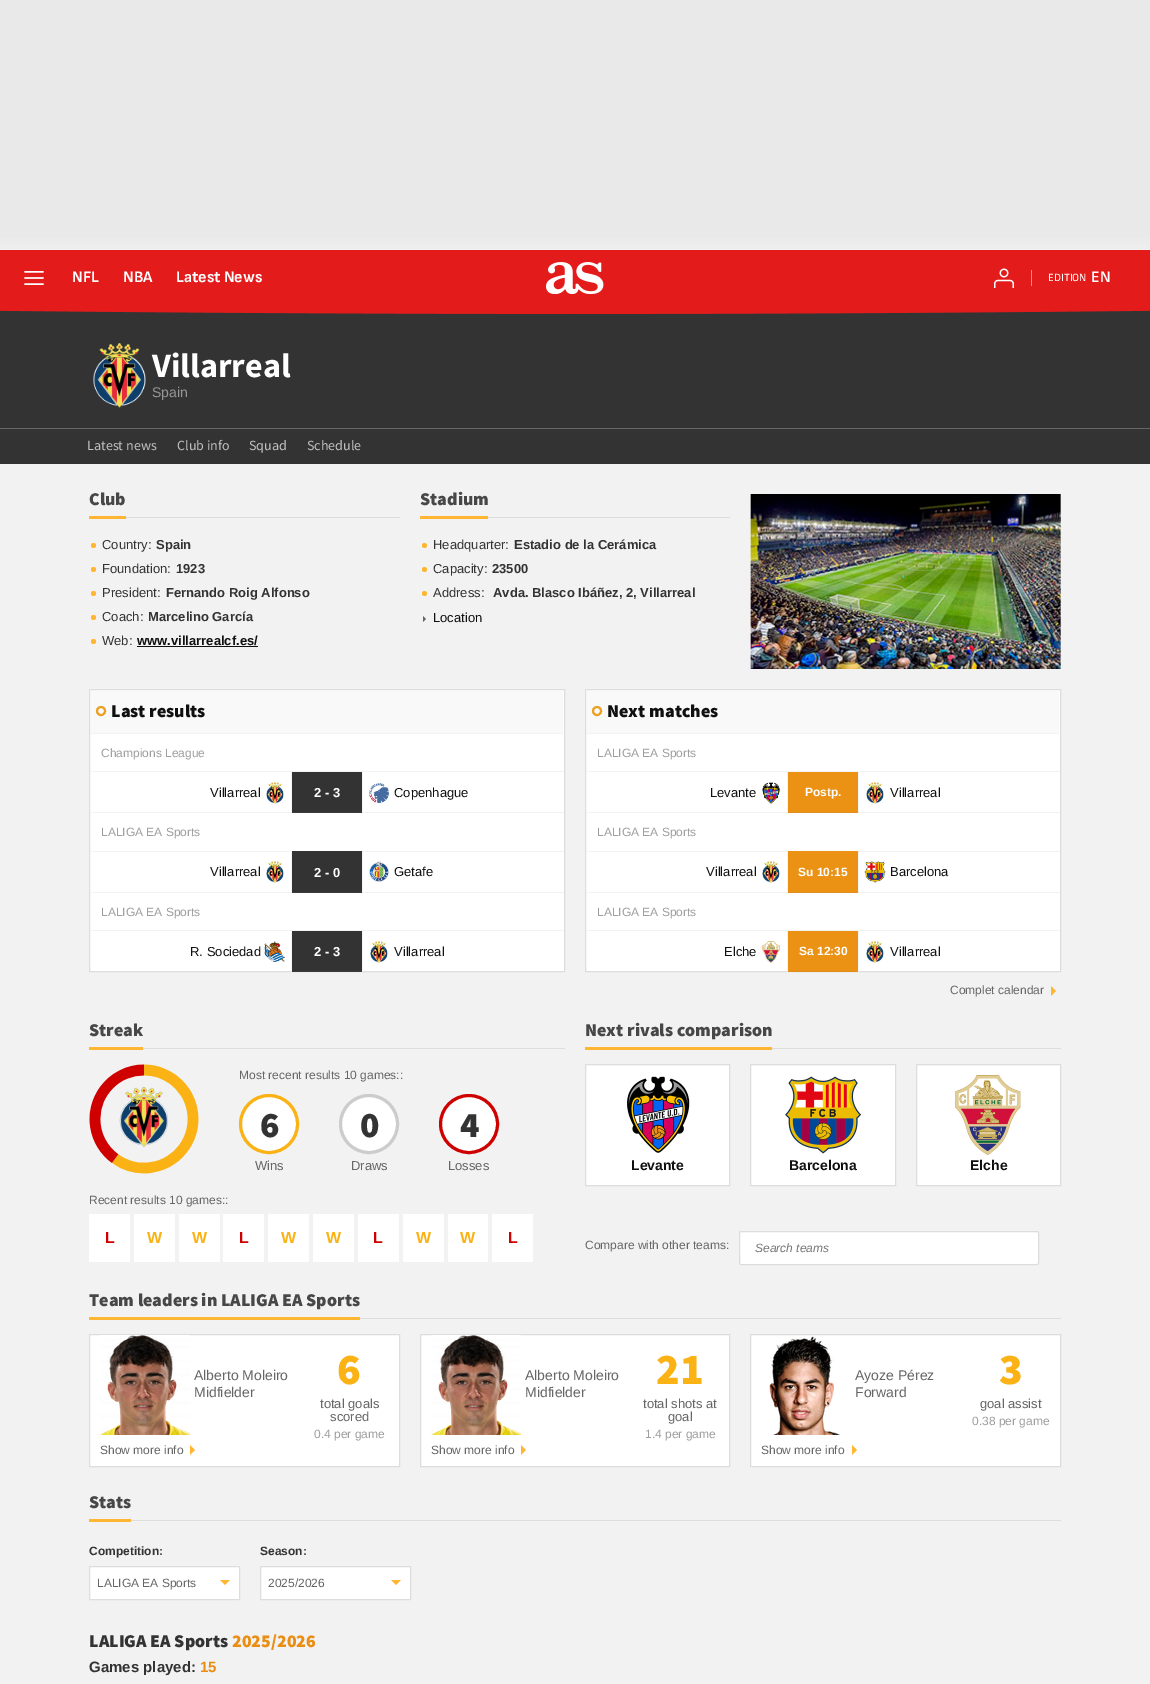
%!PS-Adobe-3.0
%%BoundingBox: 0 0 1150 1684
%%LanguageLevel: 3
%%Pages: 1
%%EndComments
%%BeginProlog
/m { moveto } bind def
/l { lineto } bind def
/h { closepath } bind def
/f { fill } bind def
/S { stroke } bind def
/q { gsave } bind def
/Q { grestore } bind def
/w { setlinewidth } bind def
/fn { [ exch dup neg 0 0 3 -1 roll 0 0 ] selectfont } def
/tx { moveto show } def
/bx { rectfill } def
/ci { newpath 0 360 arc closepath } def
/rr { 5 dict begin { /r /h /w /y /x } { exch def } forall
  x r add y moveto x w add y 2 copy h add r arct x w add y h add x 1 index r arct
  x y h add x y r arct x y 2 copy exch w add exch r arct closepath end } def
/im { 5 dict begin { /h /w /y /x /name } { exch def } forall
  gsave x y translate w h scale
  w h 8 [w 0 0 h 0 0] name (r) file false 3 colorimage grestore end } def
%%EndProlog
%%BeginSetup
<< /PageSize [1150 1684] >> setpagedevice
%%EndSetup
%%Page: 1 1
0 1684 translate 1 -1 scale
4 setmiterlimit
0.949 setgray
0 0 1150 1684 bx
q 0 0 m 1150 0 l 1150 249 l 0 249 l h clip newpath
<< /ShadingType 2 /ColorSpace /DeviceRGB /Coords [575 250 575 0] /Extend [true true] /Function << /FunctionType 3 /Domain [0 1] /Functions [<< /FunctionType 2 /Domain [0 1] /C0 [0.941 0.941 0.941] /C1 [0.914 0.914 0.914] /N 1 >> << /FunctionType 2 /Domain [0 1] /C0 [0.914 0.914 0.914] /C1 [0.914 0.914 0.914] /N 1 >>] /Bounds [0.06] /Encode [0 1 0 1] >> >> shfill Q
0.2 setgray
0 310 1150 154 bx
(image0.raw) 0 250 1150 64 im
(image1.raw) 24 271 20 14 im
/SofiaSans-Bold 16 fn
1 setgray
(NFL) 72 282 tx
(NBA) 123 282 tx
(Latest News) 176 282 tx
(image2.raw) 546 262 58 32 im
(image3.raw) 994 268 20 20 im
0.949 0.553 0.553 setrgbcolor
1031 270 1 16 bx
/SofiaSans-Regular 11 fn
1 setgray
(EDITION) 1048 281 tx
/SofiaSans-SemiBold 16 fn
(EN) 1091 282 tx
(image4.raw) 93 343 53 65 im
/SourceSansPro-Bold 34 fn
(Villarreal) 152 377 tx
/LiberationSans-Regular 14 fn
0.592 setgray
(Spain) 152 397 tx
0.4 setgray
0 428 1150 1 bx
/SourceSansPro-Regular 14 fn
0.757 setgray
(Latest news) 87 450 tx
(Club info) 177 450 tx
(Squad) 249 450 tx
(Schedule) 307 450 tx
0.867 setgray
126 517 274 1 bx
/SourceSansPro-Black 18 fn
0.278 setgray
(Club) 89 505 tx
1 0.714 0.196 setrgbcolor
89 516 37 3 bx
93.5 545.5 2.5 ci f
/LiberationSans-Regular 13 fn
0.2 setgray
(Country:) 102 549 tx
/LiberationSans-Bold 13 fn
(Spain) 156 549 tx
1 0.714 0.196 setrgbcolor
93.5 569.5 2.5 ci f
/LiberationSans-Regular 13 fn
0.2 setgray
(Foundation:) 102 573 tx
/LiberationSans-Bold 13 fn
(1923) 176 573 tx
1 0.714 0.196 setrgbcolor
93.5 593.5 2.5 ci f
/LiberationSans-Regular 13 fn
0.2 setgray
(President:) 102 597 tx
/LiberationSans-Bold 13 fn
(Fernando Roig Alfonso) 166 597 tx
1 0.714 0.196 setrgbcolor
93.5 617.5 2.5 ci f
/LiberationSans-Regular 13 fn
0.2 setgray
(Coach:) 102 621 tx
/LiberationSans-Bold 13 fn
(Marcelino García) 148 621 tx
1 0.714 0.196 setrgbcolor
93.5 641.5 2.5 ci f
/LiberationSans-Regular 13 fn
0.2 setgray
(Web:) 102 645 tx
/LiberationSans-Bold 13 fn
0.063 setgray
(www.villarrealcf.es/) 137 645 tx
137 646 121 1 bx
0.867 setgray
488 517 242 1 bx
/SourceSansPro-Black 18 fn
0.278 setgray
(Stadium) 420 505 tx
1 0.714 0.196 setrgbcolor
420 516 68 3 bx
424.5 545.5 2.5 ci f
/LiberationSans-Regular 13 fn
0.2 setgray
(Headquarter:) 433 549 tx
/LiberationSans-Bold 13 fn
(Estadio de la Cerámica) 514 549 tx
1 0.714 0.196 setrgbcolor
424.5 569.5 2.5 ci f
/LiberationSans-Regular 13 fn
0.2 setgray
(Capacity:) 433 573 tx
/LiberationSans-Bold 13 fn
(23500) 492 573 tx
1 0.714 0.196 setrgbcolor
424.5 593.5 2.5 ci f
/LiberationSans-Regular 13 fn
0.2 setgray
(Address:) 433 597 tx
/LiberationSans-Bold 13 fn
(Avda. Blasco Ibáñez, 2, Villarreal) 493 597 tx
0.388 setgray
423 622 m 423 616 l 426 619 l h f
/LiberationSans-Regular 13 fn
0.063 setgray
(Location) 433 622 tx
(image5.raw) 750 494 311 175 im
1 setgray
89.5 689.5 m 564.5 689.5 l 564.5 971.5 l 89.5 971.5 l h q f Q
0.867 setgray
S
0.976 setgray
91 691 472 42 bx
0.949 setgray
91 733 472 1 bx
0.925 0.624 0.137 setrgbcolor
2 w
101 711 4 ci S
/SourceSansPro-Black 18 fn
0.063 setgray
(Last results) 111 717 tx
/LiberationSans-Regular 12 fn
0.62 setgray
(Champions League) 101 757 tx
0.949 setgray
91 771 473 1 bx
91 812 473 1 bx
291 771 1 42 bx
/LiberationSans-Regular 13 fn
0.063 setgray
(Villarreal) 210 797 tx
(image6.raw) 266 782 18 22 im
0.949 setgray
362 771 1 42 bx
0.2 setgray
292 772 70 40 bx
/LiberationSans-Bold 13 fn
1 setgray
(2 - 3) 314 797 tx
0.231 setgray
292 812 70 1 bx
(image7.raw) 369 783 20 20 im
/LiberationSans-Regular 13 fn
0.063 setgray
(Copenhague) 394 797 tx
/LiberationSans-Regular 12 fn
0.62 setgray
(LALIGA EA Sports) 101 836 tx
0.949 setgray
91 851 201 1 bx
91 892 473 1 bx
291 851 1 42 bx
/LiberationSans-Regular 13 fn
0.063 setgray
(Villarreal) 210 876 tx
(image8.raw) 266 861 18 22 im
0.949 setgray
362 851 202 1 bx
362 851 1 42 bx
0.2 setgray
292 851 70 41 bx
/LiberationSans-Bold 13 fn
1 setgray
(2 - 0) 314 877 tx
0.231 setgray
292 892 70 1 bx
(image9.raw) 369 861 20 21 im
/LiberationSans-Regular 13 fn
0.063 setgray
(Getafe) 394 876 tx
/LiberationSans-Regular 12 fn
0.62 setgray
(LALIGA EA Sports) 101 916 tx
0.949 setgray
91 930 473 1 bx
291 930 1 42 bx
/LiberationSans-Regular 13 fn
0.063 setgray
(R. Sociedad) 190 956 tx
(image10.raw) 264 941 21 21 im
0.949 setgray
362 930 1 42 bx
0.2 setgray
292 931 70 40 bx
/LiberationSans-Bold 13 fn
1 setgray
(2 - 3) 314 956 tx
0.231 setgray
292 971 70 1 bx
(image8.raw) 370 941 18 22 im
/LiberationSans-Regular 13 fn
0.063 setgray
(Villarreal) 394 956 tx
1 setgray
585.5 689.5 m 1060.5 689.5 l 1060.5 971.5 l 585.5 971.5 l h q f Q
0.867 setgray
1 w
S
0.976 setgray
587 691 472 42 bx
0.949 setgray
587 733 472 1 bx
0.925 0.624 0.137 setrgbcolor
2 w
597 711 4 ci S
/SourceSansPro-Black 18 fn
0.063 setgray
(Next matches) 607 717 tx
/LiberationSans-Regular 12 fn
0.62 setgray
(LALIGA EA Sports) 597 757 tx
0.949 setgray
587 771 473 1 bx
587 812 473 1 bx
787 771 1 42 bx
/LiberationSans-Regular 13 fn
0.063 setgray
(Levante) 710 797 tx
(image11.raw) 762 782 18 22 im
0.949 setgray
858 771 1 42 bx
0.922 0.569 0.078 setrgbcolor
788 772 70 40 bx
/LiberationSans-Bold 12 fn
1 setgray
(Postp.) 805 796 tx
0.878 0.561 0.122 setrgbcolor
788 812 70 1 bx
(image6.raw) 866 782 18 22 im
/LiberationSans-Regular 13 fn
0.063 setgray
(Villarreal) 890 797 tx
/LiberationSans-Regular 12 fn
0.62 setgray
(LALIGA EA Sports) 597 836 tx
0.949 setgray
587 851 201 1 bx
587 892 473 1 bx
787 851 1 42 bx
/LiberationSans-Regular 13 fn
0.063 setgray
(Villarreal) 706 876 tx
(image8.raw) 762 861 18 22 im
0.949 setgray
858 851 202 1 bx
858 851 1 42 bx
0.922 0.569 0.078 setrgbcolor
788 851 70 41 bx
/LiberationSans-Bold 12 fn
1 setgray
(Su 10:15) 798 876 tx
0.878 0.561 0.122 setrgbcolor
788 892 70 1 bx
(image12.raw) 864 861 22 22 im
/LiberationSans-Regular 13 fn
0.063 setgray
(Barcelona) 890 876 tx
/LiberationSans-Regular 12 fn
0.62 setgray
(LALIGA EA Sports) 597 916 tx
0.949 setgray
587 930 473 1 bx
787 930 1 42 bx
/LiberationSans-Regular 13 fn
0.063 setgray
(Elche) 724 956 tx
(image13.raw) 761 941 20 22 im
0.949 setgray
858 930 1 42 bx
0.922 0.569 0.078 setrgbcolor
788 931 70 40 bx
/LiberationSans-Bold 12 fn
1 setgray
(Sa 12:30) 799 955 tx
0.878 0.561 0.122 setrgbcolor
788 971 70 1 bx
(image8.raw) 866 941 18 22 im
/LiberationSans-Regular 13 fn
0.063 setgray
(Villarreal) 890 956 tx
/LiberationSans-Regular 12 fn
0.4 setgray
(Complet calendar) 950 994 tx
1 0.714 0.196 setrgbcolor
1051 996 m 1051 986 l 1056 991 l h f
0.867 setgray
143 1048 422 1 bx
/SourceSansPro-Black 18 fn
0.278 setgray
(Streak) 89 1036 tx
1 0.714 0.196 setrgbcolor
89 1047 54 3 bx
(image14.raw) 89 1064 110 110 im
(image15.raw) 119 1087 50 60 im
/LiberationSans-Regular 12 fn
0.4 setgray
(Most recent results 10 games::) 239 1079 tx
1 setgray
269 1124 28.5 ci q f Q
0.98 0.698 0.082 setrgbcolor
3 w
S
/SourceSansPro-Black 36 fn
0.2 setgray
(6) 260 1137 tx
/LiberationSans-Regular 13 fn
0.4 setgray
(Wins) 255 1170 tx
1 setgray
369 1124 28.5 ci q f Q
0.8 setgray
S
/SourceSansPro-Black 36 fn
0.2 setgray
(0) 360 1137 tx
/LiberationSans-Regular 13 fn
0.4 setgray
(Draws) 351 1170 tx
1 setgray
469 1124 28.5 ci q f Q
0.808 0 0 setrgbcolor
S
/SourceSansPro-Black 36 fn
0.2 setgray
(4) 460 1137 tx
/LiberationSans-Regular 13 fn
0.4 setgray
(Losses) 448 1170 tx
/LiberationSans-Regular 12 fn
(Recent results 10 games::) 89 1204 tx
1 setgray
89 1214 41 48 bx
/LiberationSans-Bold 16 fn
0.808 0 0 setrgbcolor
(L) 105 1243 tx
1 setgray
134 1214 41 48 bx
0.98 0.698 0.082 setrgbcolor
(W) 147 1243 tx
1 setgray
179 1214 41 48 bx
0.98 0.698 0.082 setrgbcolor
(W) 192 1243 tx
1 setgray
223 1214 41 48 bx
0.808 0 0 setrgbcolor
(L) 239 1243 tx
1 setgray
268 1214 41 48 bx
0.98 0.698 0.082 setrgbcolor
(W) 281 1243 tx
1 setgray
313 1214 41 48 bx
0.98 0.698 0.082 setrgbcolor
(W) 326 1243 tx
1 setgray
358 1214 41 48 bx
0.808 0 0 setrgbcolor
(L) 373 1243 tx
1 setgray
403 1214 41 48 bx
0.98 0.698 0.082 setrgbcolor
(W) 416 1243 tx
1 setgray
448 1214 40 48 bx
0.98 0.698 0.082 setrgbcolor
(W) 460 1243 tx
1 setgray
492 1214 41 48 bx
0.808 0 0 setrgbcolor
(L) 508 1243 tx
0.867 setgray
772 1048 289 1 bx
/SourceSansPro-Black 18 fn
0.278 setgray
(Next rivals comparison) 585 1036 tx
1 0.714 0.196 setrgbcolor
585 1047 187 3 bx
1 setgray
585.5 1064.5 m 729.5 1064.5 l 729.5 1185.5 l 585.5 1185.5 l h q f Q
0.867 setgray
1 w
S
(image16.raw) 627 1076 63 77 im
/LiberationSans-Bold 14 fn
0.063 setgray
(Levante) 631 1170 tx
1 setgray
750.5 1064.5 m 895.5 1064.5 l 895.5 1185.5 l 750.5 1185.5 l h q f Q
0.867 setgray
S
(image17.raw) 785 1076 77 78 im
0.063 setgray
(Barcelona) 789 1170 tx
1 setgray
916.5 1064.5 m 1060.5 1064.5 l 1060.5 1185.5 l 916.5 1185.5 l h q f Q
0.867 setgray
S
(image18.raw) 955 1075 66 80 im
0.063 setgray
(Elche) 970 1170 tx
/LiberationSans-Regular 12 fn
0.4 setgray
(Compare with other teams:) 585 1249 tx
1 setgray
739.5 1231.5 299 33 1.5 rr q f Q
0.867 setgray
S
/LiberationSans-Italic 12 fn
0.459 setgray
(Search teams) 755 1252 tx
0.867 setgray
360 1318 701 1 bx
/SourceSansPro-Black 18 fn
0.278 setgray
(Team leaders in LALIGA EA Sports) 89 1306 tx
1 0.714 0.196 setrgbcolor
89 1317 271 3 bx
1 setgray
89.5 1334.5 m 399.5 1334.5 l 399.5 1466.5 l 89.5 1466.5 l h q f Q
0.867 setgray
S
(image19.raw) 100 1335 90 100 im
/LiberationSans-Regular 14 fn
0.4 setgray
(Alberto Moleiro) 194 1380 tx
(Midfielder) 194 1397 tx
/SourceSansPro-Black 44 fn
0.98 0.698 0.082 setrgbcolor
(6) 337 1384 tx
/LiberationSans-Regular 13 fn
0.4 setgray
(total goals) 320 1408 tx
(scored) 330 1421 tx
/LiberationSans-Regular 12 fn
0.62 setgray
(0.4 per game) 314 1438 tx
0.4 setgray
(Show more info) 100 1454 tx
1 0.714 0.196 setrgbcolor
190 1455 m 190 1445 l 195 1450 l h f
1 setgray
420.5 1334.5 m 729.5 1334.5 l 729.5 1466.5 l 420.5 1466.5 l h q f Q
0.867 setgray
S
(image19.raw) 431 1335 90 100 im
/LiberationSans-Regular 14 fn
0.4 setgray
(Alberto Moleiro) 525 1380 tx
(Midfielder) 525 1397 tx
/SourceSansPro-Black 44 fn
0.98 0.698 0.082 setrgbcolor
(21) 656 1384 tx
/LiberationSans-Regular 13 fn
0.4 setgray
(total shots at) 643 1408 tx
(goal) 668 1421 tx
/LiberationSans-Regular 12 fn
0.62 setgray
(1.4 per game) 645 1438 tx
0.4 setgray
(Show more info) 431 1454 tx
1 0.714 0.196 setrgbcolor
521 1455 m 521 1445 l 526 1450 l h f
1 setgray
750.5 1334.5 m 1060.5 1334.5 l 1060.5 1466.5 l 750.5 1466.5 l h q f Q
0.867 setgray
S
(image20.raw) 769 1336 71 99 im
/LiberationSans-Regular 14 fn
0.4 setgray
(Ayoze Pérez) 855 1380 tx
(Forward) 855 1397 tx
/SourceSansPro-Black 44 fn
0.98 0.698 0.082 setrgbcolor
(3) 999 1384 tx
/LiberationSans-Regular 13 fn
0.4 setgray
(goal assist) 980 1408 tx
/LiberationSans-Regular 12 fn
0.62 setgray
(0.38 per game) 972 1425 tx
0.4 setgray
(Show more info) 761 1454 tx
1 0.714 0.196 setrgbcolor
852 1455 m 852 1445 l 857 1450 l h f
0.867 setgray
131 1520 930 1 bx
/SourceSansPro-Black 18 fn
0.278 setgray
(Stats) 89 1508 tx
1 0.714 0.196 setrgbcolor
89 1519 42 3 bx
/LiberationSans-Bold 12 fn
0.2 setgray
(Competition:) 89 1555 tx
1 setgray
89.5 1566.5 150 33 0.5 rr q f Q
0.867 setgray
S
/LiberationSans-Regular 12 fn
0.4 setgray
(LALIGA EA Sports) 97 1587 tx
1 0.714 0.196 setrgbcolor
220 1580 m 230 1580 l 225 1585 l h f
/LiberationSans-Bold 12 fn
0.2 setgray
(Season:) 260 1555 tx
1 setgray
260.5 1566.5 150 33 0.5 rr q f Q
0.867 setgray
S
/LiberationSans-Regular 12 fn
0.4 setgray
(2025/2026) 268 1587 tx
1 0.714 0.196 setrgbcolor
391 1580 m 401 1580 l 396 1585 l h f
/SourceSansPro-Black 18 fn
0.2 setgray
(LALIGA EA Sports) 89 1647 tx
0.914 0.553 0.075 setrgbcolor
(2025/2026) 232 1647 tx
/LiberationSans-Bold 15 fn
0.2 setgray
(Games played:) 89 1672 tx
0.914 0.553 0.075 setrgbcolor
(15) 200 1672 tx
showpage
%%EOF
